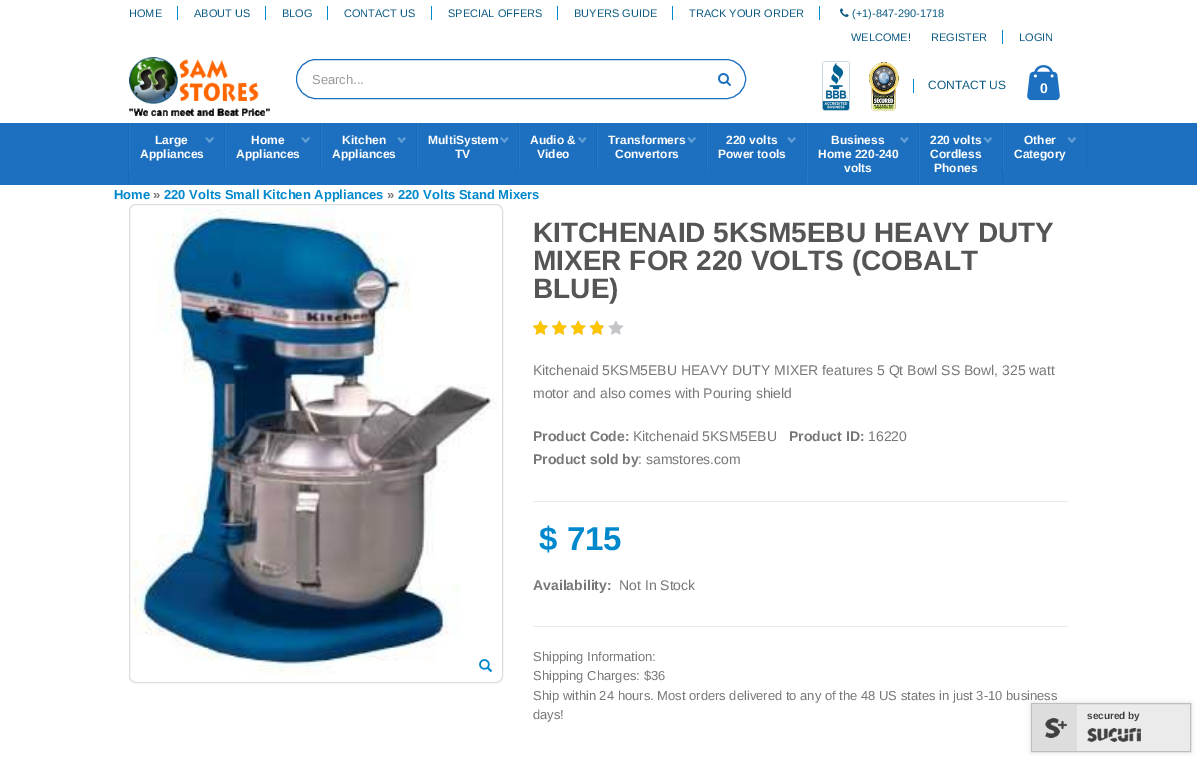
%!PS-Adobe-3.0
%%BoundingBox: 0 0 1197 758
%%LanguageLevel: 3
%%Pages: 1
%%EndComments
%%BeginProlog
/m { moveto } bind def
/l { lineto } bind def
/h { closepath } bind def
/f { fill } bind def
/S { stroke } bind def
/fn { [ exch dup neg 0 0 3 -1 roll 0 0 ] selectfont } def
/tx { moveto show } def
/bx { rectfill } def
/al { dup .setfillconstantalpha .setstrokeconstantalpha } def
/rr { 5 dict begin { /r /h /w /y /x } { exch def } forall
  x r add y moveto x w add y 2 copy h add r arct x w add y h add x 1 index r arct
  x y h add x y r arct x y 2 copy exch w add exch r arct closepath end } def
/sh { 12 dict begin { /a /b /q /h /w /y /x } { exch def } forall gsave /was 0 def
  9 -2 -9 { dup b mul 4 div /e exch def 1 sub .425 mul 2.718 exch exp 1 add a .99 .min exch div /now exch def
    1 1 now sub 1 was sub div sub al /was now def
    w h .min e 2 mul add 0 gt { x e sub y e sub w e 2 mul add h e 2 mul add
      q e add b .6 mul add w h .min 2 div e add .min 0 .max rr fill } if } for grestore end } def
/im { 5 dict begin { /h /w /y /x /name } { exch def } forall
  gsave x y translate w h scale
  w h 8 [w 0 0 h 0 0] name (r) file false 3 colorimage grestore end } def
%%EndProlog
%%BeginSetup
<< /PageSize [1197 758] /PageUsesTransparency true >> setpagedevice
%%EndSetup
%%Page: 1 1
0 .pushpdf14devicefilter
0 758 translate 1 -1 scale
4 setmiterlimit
1 setgray
0 0 1197 758 bx
/LiberationSans-Regular 11 fn
0.043 0.353 0.506 setrgbcolor
(HOME) 129 17 tx
0 0.541 0.812 setrgbcolor
177 6 1 14 bx
0.043 0.353 0.506 setrgbcolor
(ABOUT US) 194 17 tx
0 0.541 0.812 setrgbcolor
265 6 1 14 bx
0.043 0.353 0.506 setrgbcolor
(BLOG) 282 17 tx
0 0.541 0.812 setrgbcolor
327 6 1 14 bx
0.043 0.353 0.506 setrgbcolor
(CONTACT US) 344 17 tx
0 0.541 0.812 setrgbcolor
431 6 1 14 bx
0.043 0.353 0.506 setrgbcolor
(SPECIAL OFFERS) 448 17 tx
0 0.541 0.812 setrgbcolor
557 6 1 14 bx
0.043 0.353 0.506 setrgbcolor
(BUYERS GUIDE) 574 17 tx
0 0.541 0.812 setrgbcolor
672 6 1 14 bx
0.043 0.353 0.506 setrgbcolor
(TRACK YOUR ORDER) 689 17 tx
0 0.541 0.812 setrgbcolor
819 6 1 14 bx
(image0.raw) 840 8 9 9 im
0.043 0.353 0.506 setrgbcolor
(\(+1\)-847-290-1718) 852 17 tx
(WELCOME!) 851 41 tx
(REGISTER) 931 41 tx
0 0.541 0.812 setrgbcolor
1002 30 1 14 bx
0.043 0.353 0.506 setrgbcolor
(LOGIN) 1019 41 tx
(image1.raw) 129 57 141 59 im
0.11 0.439 0.749 setrgbcolor
296.5 59.5 449 39 19.5 rr S
/LiberationSans-Regular 13 fn
0.6 setgray
(Search...) 312 84 tx
(image2.raw) 718 73 13 13 im
(image3.raw) 822 61 28 50 im
(image4.raw) 869 62 30 49 im
0 0.541 0.812 setrgbcolor
913 79 1 14 bx
/LiberationSans-Regular 12 fn
0.043 0.353 0.506 setrgbcolor
(CONTACT US) 928 89 tx
(image5.raw) 1027 65 33 36 im
/LiberationSans-Bold 14 fn
1 setgray
(0) 1040 93 tx
0.11 0.439 0.749 setrgbcolor
0 123 1197 62 bx
0.098 0.408 0.702 setrgbcolor
128 123 1 62 bx
224 123 1 48 bx
0.137 0.475 0.792 setrgbcolor
129 123 1 48 bx
/LiberationSans-Bold 12 fn
1 setgray
(Large) 155 144 tx
(Appliances) 140 158 tx
0.376 0.62 0.851 setrgbcolor
212.5 137 m 214 138.5 l 209.5 143 l 208 141.5 l h f
206.5 137 m 211 141.5 l 209.5 143 l 205.5 138.5 l h f
0.098 0.408 0.702 setrgbcolor
320 123 1 48 bx
0.137 0.475 0.792 setrgbcolor
225 123 1 48 bx
1 setgray
(Home) 251 144 tx
(Appliances) 236 158 tx
0.376 0.62 0.851 setrgbcolor
308.5 137 m 310 138.5 l 305.5 143 l 304 141.5 l h f
302.5 137 m 307 141.5 l 305.5 143 l 301.5 138.5 l h f
0.098 0.408 0.702 setrgbcolor
416 123 1 48 bx
0.137 0.475 0.792 setrgbcolor
321 123 1 48 bx
1 setgray
(Kitchen) 342 144 tx
(Appliances) 332 158 tx
0.376 0.62 0.851 setrgbcolor
404.5 137 m 406 138.5 l 401.5 143 l 400 141.5 l h f
399 137 m 403 141.5 l 401.5 143 l 397.5 138.5 l h f
0.098 0.408 0.702 setrgbcolor
518 123 1 48 bx
0.137 0.475 0.792 setrgbcolor
417 123 1 48 bx
1 setgray
(MultiSystem) 428 144 tx
(TV) 455 158 tx
0.376 0.62 0.851 setrgbcolor
507 137 m 508.5 138.5 l 504.5 143 l 503 141.5 l h f
501.5 137 m 505.5 141.5 l 504.5 143 l 500 138.5 l h f
0.098 0.408 0.702 setrgbcolor
596 123 1 48 bx
0.137 0.475 0.792 setrgbcolor
519 123 1 48 bx
1 setgray
(Audio &) 530 144 tx
(Video) 537 158 tx
0.376 0.62 0.851 setrgbcolor
585 137 m 586.5 138.5 l 582.5 143 l 581 141.5 l h f
579.5 137 m 583.5 141.5 l 582.5 143 l 578 138.5 l h f
0.098 0.408 0.702 setrgbcolor
706 123 1 48 bx
0.137 0.475 0.792 setrgbcolor
597 123 1 48 bx
1 setgray
(Transformers) 608 144 tx
(Convertors) 615 158 tx
0.376 0.62 0.851 setrgbcolor
694.5 137 m 696 138.5 l 691.5 143 l 690 141.5 l h f
689 137 m 693 141.5 l 691.5 143 l 687.5 138.5 l h f
0.098 0.408 0.702 setrgbcolor
806 123 1 48 bx
0.137 0.475 0.792 setrgbcolor
707 123 1 48 bx
1 setgray
(220 volts) 726 144 tx
(Power tools) 718 158 tx
0.376 0.62 0.851 setrgbcolor
794.5 137 m 796 138.5 l 791.5 143 l 790.5 141.5 l h f
789 137 m 793 141.5 l 791.5 143 l 787.5 138.5 l h f
0.098 0.408 0.702 setrgbcolor
918 123 1 62 bx
0.137 0.475 0.792 setrgbcolor
807 123 1 62 bx
1 setgray
(Business) 831 144 tx
(Home 220-240) 818 158 tx
(volts) 844 172 tx
0.376 0.62 0.851 setrgbcolor
907 137 m 908.5 138.5 l 904.5 143 l 903 141.5 l h f
901.5 137 m 906 141.5 l 904.5 143 l 900 138.5 l h f
0.098 0.408 0.702 setrgbcolor
1002 123 1 62 bx
0.137 0.475 0.792 setrgbcolor
919 123 1 62 bx
1 setgray
(220 volts) 930 144 tx
(Cordless) 930 158 tx
(Phones) 934 172 tx
0.376 0.62 0.851 setrgbcolor
990.5 137 m 992 138.5 l 988 143 l 986.5 141.5 l h f
985 137 m 989 141.5 l 988 143 l 983.5 138.5 l h f
0.098 0.408 0.702 setrgbcolor
1086 123 1 48 bx
0.137 0.475 0.792 setrgbcolor
1003 123 1 48 bx
1 setgray
(Other) 1024 144 tx
(Category) 1014 158 tx
0.376 0.62 0.851 setrgbcolor
1074.5 137 m 1076 138.5 l 1072 143 l 1070.5 141.5 l h f
1069 137 m 1073 141.5 l 1072 143 l 1067.5 138.5 l h f
/LiberationSans-Bold 13 fn
0 0.533 0.8 setrgbcolor
(Home) 114 199 tx
0.467 setgray
(») 153 199 tx
0 0.533 0.8 setrgbcolor
(220 Volts Small Kitchen Appliances) 164 199 tx
0.467 setgray
(») 387 199 tx
0 0.533 0.8 setrgbcolor
(220 Volts Stand Mixers) 398 199 tx
0.867 setgray
129.5 204.5 373 478 6.5 rr S
(image6.raw) 133 208 364 469 im
(image7.raw) 479 659 14 13 im
/LiberationSans-Bold 28 fn
0.333 setgray
(KITCHENAID 5KSM5EBU HEAVY DUTY) 533 242 tx
(MIXER FOR 220 VOLTS \(COBALT) 533 270 tx
(BLUE\)) 533 298 tx
(image8.raw) 533 320 91 15 im
(image9.raw) 533 320 70 15 im
0.922 setgray
533 501 535 1 bx
/LiberationSans-Regular 14 fn
0.467 setgray
(Kitchenaid 5KSM5EBU HEAVY DUTY MIXER features 5 Qt Bowl SS Bowl, 325 watt) 533 375 tx
(motor and also comes with Pouring shield) 533 398 tx
/LiberationSans-Bold 14 fn
(Product Code:) 533 441 tx
/LiberationSans-Regular 14 fn
(Kitchenaid 5KSM5EBU) 633 441 tx
/LiberationSans-Bold 14 fn
(Product ID:) 789 441 tx
/LiberationSans-Regular 14 fn
(16220) 868 441 tx
/LiberationSans-Bold 14 fn
(Product sold by) 533 464 tx
/LiberationSans-Regular 14 fn
(: samstores.com) 638 464 tx
0.922 setgray
533 626 535 1 bx
/LiberationSans-Bold 33 fn
0 0.533 0.8 setrgbcolor
($ 715) 539 550 tx
/LiberationSans-Bold 14 fn
0.467 setgray
(Availability:) 533 590 tx
/LiberationSans-Regular 14 fn
(Not In Stock) 619 590 tx
/LiberationSans-Regular 13 fn
(Shipping Information:) 533 661 tx
(Shipping Charges: $36) 533 680 tx
(Ship within 24 hours. Most orders delivered to any of the 48 US states in just 3-10 business) 533 700 tx
(days!) 533 719 tx
0 setgray
1031 703 160 49 0 3 0.14 sh
0.922 setgray
1077 704 113 47 bx
0.745 setgray
1031.5 703.5 159 48 rectstroke
0.867 setgray
1032 704 45 47 bx
(image10.raw) 1045 718 22 20 im
/LiberationSans-Bold 10 fn
0.247 setgray
(secured by) 1087 719 tx
(image11.raw) 1087 728 54 14 im
.poppdf14devicefilter showpage
%%EOF
